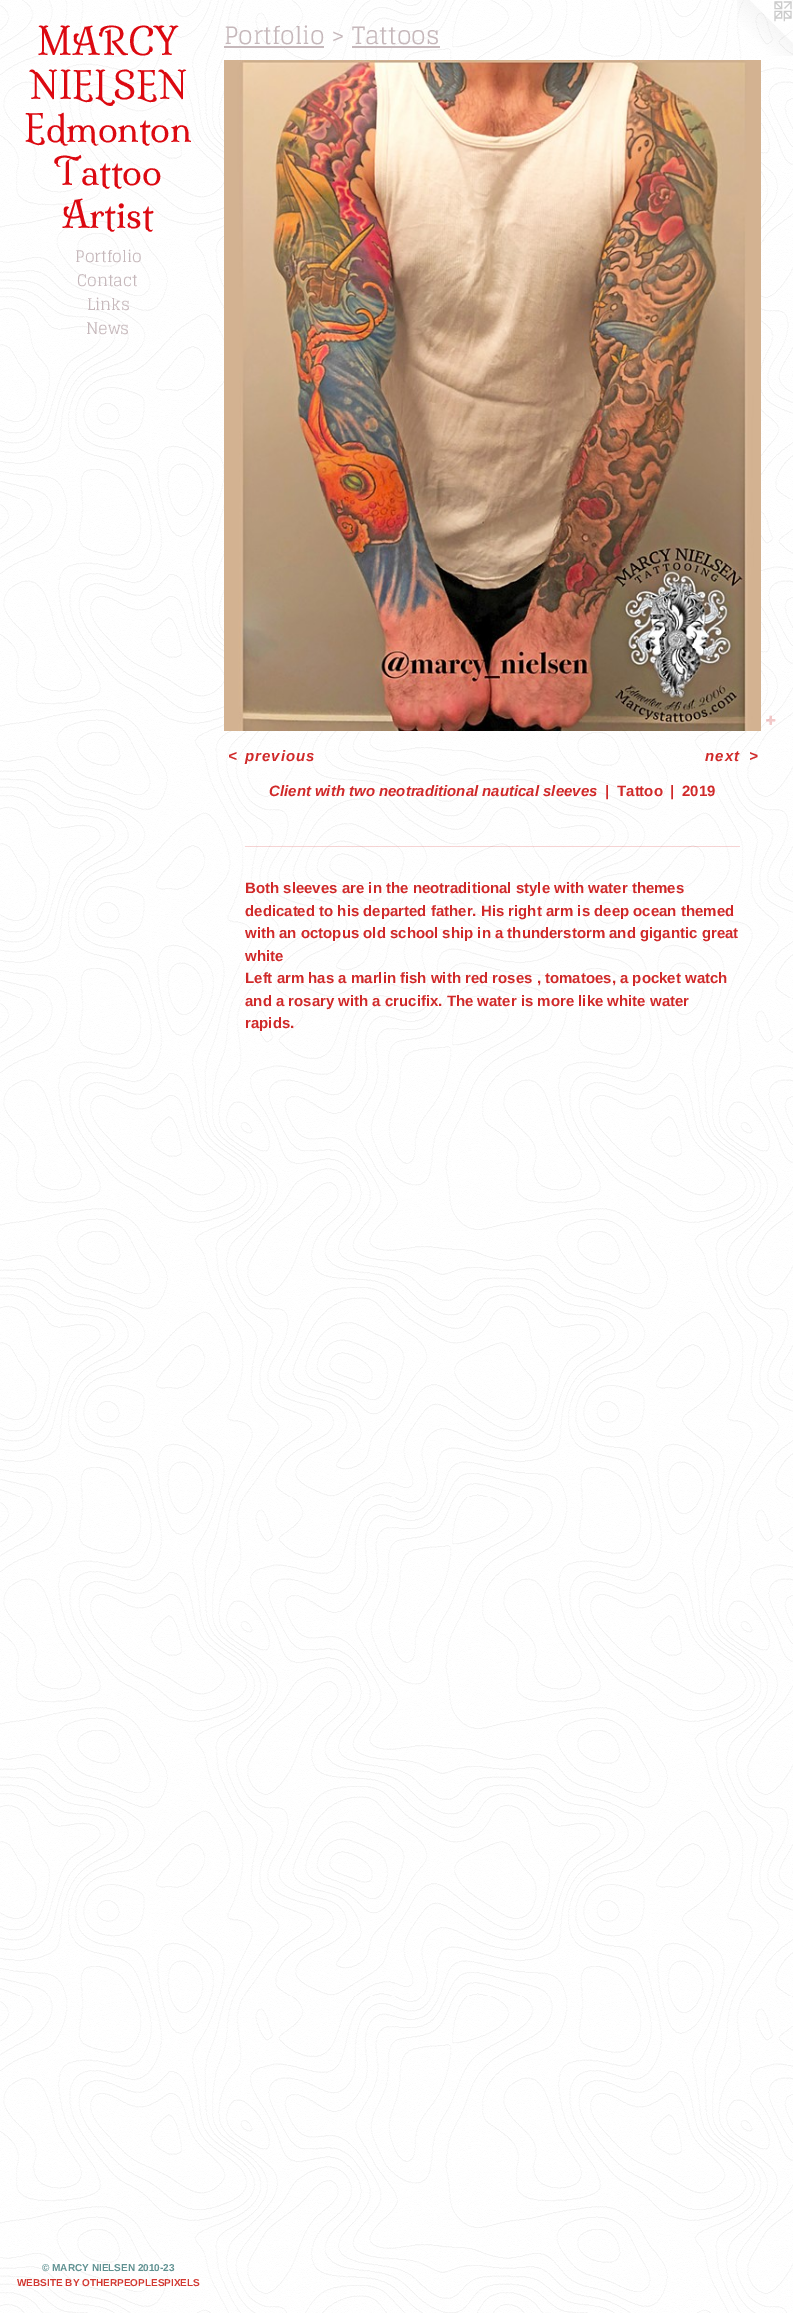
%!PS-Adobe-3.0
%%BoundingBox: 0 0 793 2313
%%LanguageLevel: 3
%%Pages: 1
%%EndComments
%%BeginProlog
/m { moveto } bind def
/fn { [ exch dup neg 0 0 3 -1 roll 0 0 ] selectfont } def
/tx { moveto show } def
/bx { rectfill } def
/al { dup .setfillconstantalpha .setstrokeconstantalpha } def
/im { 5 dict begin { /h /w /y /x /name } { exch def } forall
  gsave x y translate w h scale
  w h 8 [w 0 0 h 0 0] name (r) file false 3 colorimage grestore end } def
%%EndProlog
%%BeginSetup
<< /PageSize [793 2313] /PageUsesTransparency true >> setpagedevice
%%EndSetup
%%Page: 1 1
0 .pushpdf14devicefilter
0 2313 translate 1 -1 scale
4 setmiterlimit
1 setgray
0 0 793 2313 bx
(image0.raw) 0 0 793 2313 im
/Milonga-Regular 36 fn
0.863 0.035 0.067 setrgbcolor
(MARCY) 37 55 tx
(NIELSEN) 29 99 tx
(Edmonton) 24 142 tx
(Tattoo) 54 185 tx
(Artist) 62 228 tx
/Glegoo-Regular 16 fn
0.776 0.722 0.733 setrgbcolor
(Portfolio) 75 262 tx
(Contact) 77 286 tx
(Links) 87 310 tx
(News) 86 334 tx
/LiberationSans-Bold 10 fn
0.373 0.569 0.569 setrgbcolor
(© MARCY NIELSEN 2010-23) 42 2271 tx
0.824 0.224 0.196 setrgbcolor
(WEBSITE BY OTHERPEOPLESPIXELS) 17 2286 tx
/Glegoo-Regular 24 fn
0.776 0.722 0.733 setrgbcolor
(Portfolio > Tattoos) 224 44 tx
224 46 100 2 bx
352 46 88 2 bx
(image1.raw) 224 60 537 671 im
(image2.raw) 766 715 10 10 im
/LiberationSans-BoldItalic 15 fn
0.816 0.161 0.161 setrgbcolor
228 761 m 1 0 (<) ashow
245 761 m 1 0 (previous) ashow
705 761 m 1 0 (next) ashow
749 761 m 1 0 (>) ashow
(Client with two neotraditional nautical sleeves) 269 796 tx
/LiberationSans-Bold 15 fn
(|) 605 796 tx
(Tattoo) 617 796 tx
(|) 670 796 tx
(2019) 682 796 tx
0.2 al
245 846 495 1 bx
1 al
(Both sleeves are in the neotraditional style with water themes) 245 893 tx
(dedicated to his departed father. His right arm is deep ocean themed) 245 916 tx
(with an octopus old school ship in a thunderstorm and gigantic great) 245 938 tx
(white) 245 961 tx
(Left arm has a marlin fish with red roses , tomatoes, a pocket watch) 245 983 tx
(and a rosary with a crucifix. The water is more like white water) 245 1006 tx
(rapids.) 245 1028 tx
(image3.raw) 737 0 56 56 im
.poppdf14devicefilter showpage
%%EOF
